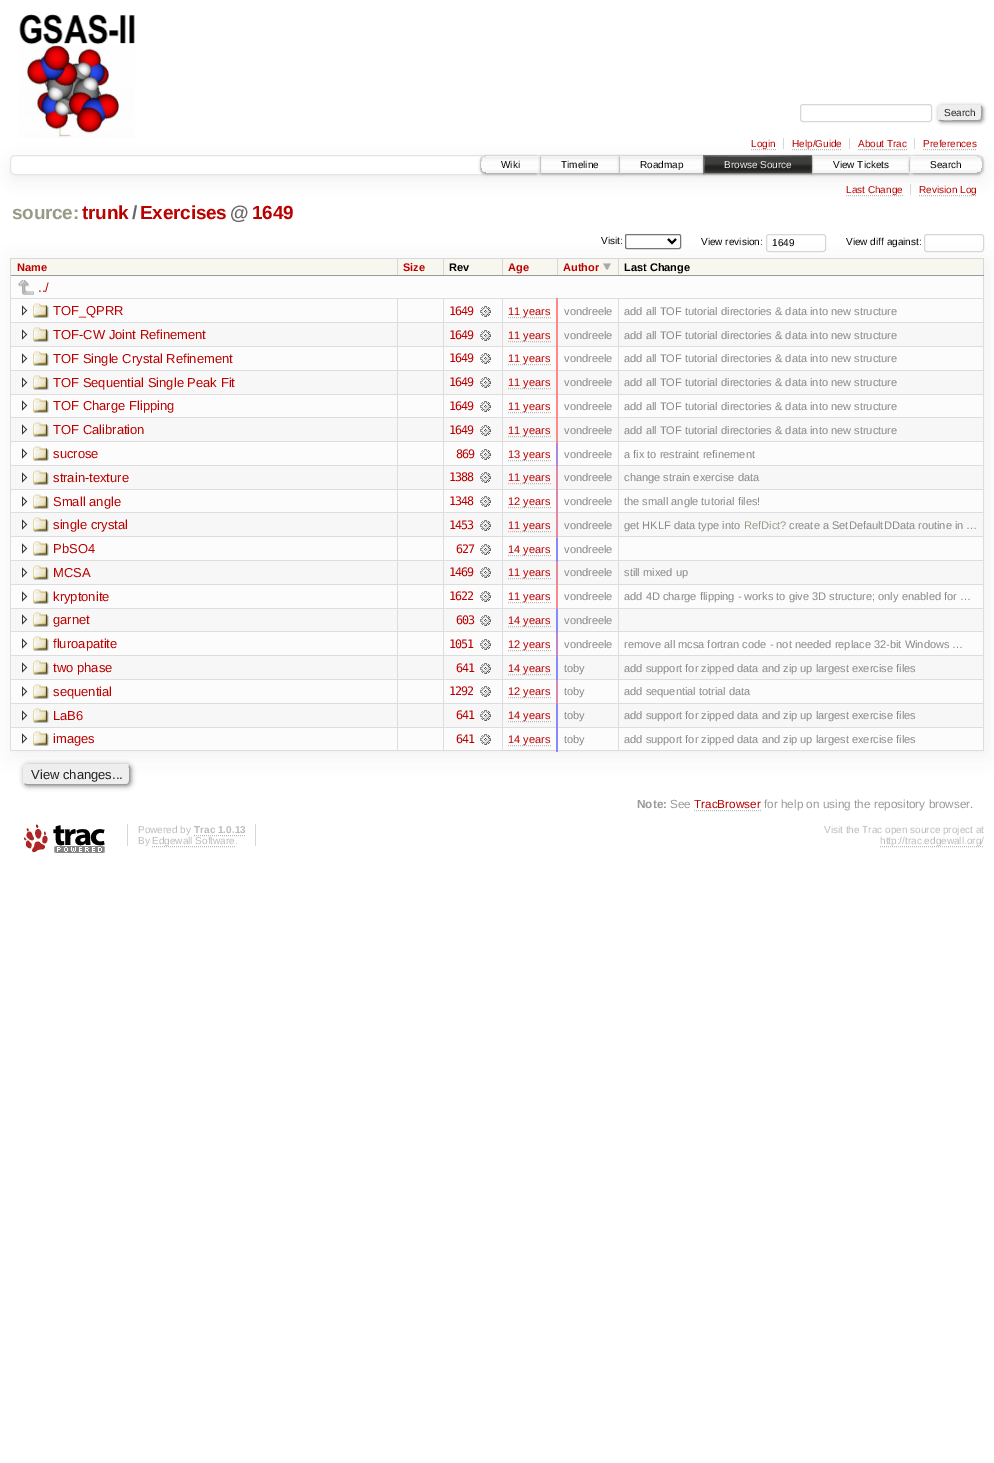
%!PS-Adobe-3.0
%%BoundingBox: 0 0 994 1463
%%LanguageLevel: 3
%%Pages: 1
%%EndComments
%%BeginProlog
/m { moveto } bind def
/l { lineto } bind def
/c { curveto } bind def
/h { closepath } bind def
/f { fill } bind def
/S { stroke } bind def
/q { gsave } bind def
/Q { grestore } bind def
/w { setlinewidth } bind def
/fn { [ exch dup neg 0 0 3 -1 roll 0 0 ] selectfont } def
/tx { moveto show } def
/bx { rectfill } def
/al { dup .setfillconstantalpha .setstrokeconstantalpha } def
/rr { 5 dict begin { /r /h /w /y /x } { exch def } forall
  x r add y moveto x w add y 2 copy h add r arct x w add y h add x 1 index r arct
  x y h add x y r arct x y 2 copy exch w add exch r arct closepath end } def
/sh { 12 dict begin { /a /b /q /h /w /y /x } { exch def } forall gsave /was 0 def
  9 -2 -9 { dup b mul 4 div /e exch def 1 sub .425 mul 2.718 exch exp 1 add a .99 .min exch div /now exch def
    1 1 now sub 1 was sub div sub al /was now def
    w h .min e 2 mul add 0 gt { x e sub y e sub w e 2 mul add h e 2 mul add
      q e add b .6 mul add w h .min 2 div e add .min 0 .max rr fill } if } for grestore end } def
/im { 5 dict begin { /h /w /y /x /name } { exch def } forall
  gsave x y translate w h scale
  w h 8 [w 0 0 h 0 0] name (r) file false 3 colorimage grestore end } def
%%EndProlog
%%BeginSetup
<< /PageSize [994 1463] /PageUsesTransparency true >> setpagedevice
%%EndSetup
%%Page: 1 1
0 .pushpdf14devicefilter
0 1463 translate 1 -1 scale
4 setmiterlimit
1 setgray
0 0 994 1463 bx
q
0 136 m 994 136 l 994 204 l 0 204 l h 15 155 m 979 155 l 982 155 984 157 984 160 c 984 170 l 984 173 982 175 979 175 c 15 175 l 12 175 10 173 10 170 c 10 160 l 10 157 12 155 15 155 c h eoclip newpath
0.933 setgray
10 160 974 20 5 7.5 1 sh
Q
(image0.raw) 19 14 116 124 im
0.843 setgray
800.5 104.5 131 17 2.5 rr S
0.533 setgray
939 106 44 16 3 2 1 sh
0.933 setgray
938 105 44 16 3 rr f
0.624 setgray
981 106 m 982.5 108 981.5 111 981.5 113 c 981.5 121.5 982 120.5 972.5 120.5 c 960 120.5 l 957 120.5 941 121.5 939 120 c S
0.933 setgray
939 120 m 937.5 118 938.5 115 938.5 113 c 938.5 104.5 938 105.5 947.5 105.5 c 960 105.5 l 963 105.5 979 104.5 981 106 c S
/LiberationSans-Regular 10 fn
0.133 setgray
(Search) 944 116 tx
0.843 setgray
783 138 1 11 bx
0.733 setgray
[1 1] 0 setdash
751 149.5 m 776 149.5 l S
0.733 0 0 setrgbcolor
(Login) 751 147 tx
0.843 setgray
849 138 1 11 bx
0.733 setgray
792 149.5 m 842 149.5 l S
0.733 0 0 setrgbcolor
(Help/Guide) 792 147 tx
0.843 setgray
914 138 1 11 bx
0.733 0 0 setrgbcolor
(About Trac) 858 147 tx
0.733 setgray
858 149.5 m 907 149.5 l S
0.733 0 0 setrgbcolor
(Preferences) 923 147 tx
0.733 setgray
923 149.5 m 977 149.5 l S
0.894 setgray
[] 0 setdash
10.5 155.5 973 19 4.5 rr S
1 setgray
485 155 m 541 155 l 541 174 l 485 174 l 482 174 480 172 480 169 c 480 160 l 480 157 482 155 485 155 c h f
(image1.raw) 480 157 60 17 im
0.894 setgray
485 155.5 m 540.5 155.5 l 540.5 173.5 l 485 173.5 l 482.5 173.5 480.5 171.5 480.5 169 c 480.5 160 l 480.5 157.5 482.5 155.5 485 155.5 c h S
q
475 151 m 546 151 l 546 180 l 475 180 l h 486 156 m 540 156 l 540 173 l 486 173 l 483 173 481 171 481 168 c 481 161 l 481 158 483 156 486 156 c h eoclip newpath
0.6 setgray
481 157 59 17 5 1.5 1 sh
Q
0 setgray
(Wiki) 501 168 tx
1 setgray
541 158 2 15 bx
(image2.raw) 541 157 78 16 im
0.894 setgray
540.5 155.5 79 18 rectstroke
q
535 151 m 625 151 l 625 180 l 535 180 l h 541 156 m 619 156 l 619 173 l 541 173 l h eoclip newpath
0.6 setgray
541 157 78 17 0 1.5 1 sh
Q
0 setgray
(Timeline) 561 168 tx
1 setgray
620 156 2 17 bx
(image3.raw) 620 157 83 16 im
0.894 setgray
619.5 155.5 84 18 rectstroke
q
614 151 m 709 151 l 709 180 l 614 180 l h 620 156 m 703 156 l 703 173 l 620 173 l h eoclip newpath
0.6 setgray
620 157 83 17 0 1.5 1 sh
Q
0 setgray
(Roadmap) 640 168 tx
0.4 setgray
703.5 155.5 109 18 rectstroke
0.6 setgray
704 157 108 17 0 1.5 1 sh
0 setgray
704 156 108 17 bx
(image4.raw) 704 156 108 17 im
0.933 setgray
(Browse Source) 724 168 tx
1 setgray
813 156 2 17 bx
(image5.raw) 813 157 96 16 im
0.894 setgray
812.5 155.5 97 18 rectstroke
q
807 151 m 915 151 l 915 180 l 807 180 l h 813 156 m 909 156 l 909 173 l 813 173 l h eoclip newpath
0.6 setgray
813 157 96 17 0 1.5 1 sh
Q
0 setgray
(View Tickets) 833 168 tx
1 setgray
909 155 m 978 155 l 981 155 983 157 983 160 c 983 169 l 983 172 981 174 978 174 c 909 174 l h f
(image6.raw) 910 157 73 17 im
0.894 setgray
909.5 155.5 m 978 155.5 l 980.5 155.5 982.5 157.5 982.5 160 c 982.5 169 l 982.5 171.5 980.5 173.5 978 173.5 c 909.5 173.5 l h S
q
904 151 m 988 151 l 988 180 l 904 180 l h 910 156 m 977 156 l 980 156 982 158 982 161 c 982 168 l 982 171 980 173 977 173 c 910 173 l h eoclip newpath
0.6 setgray
910 157 72 17 5 1.5 1 sh
Q
0 setgray
(Search) 930 168 tx
0.843 setgray
910 184 1 11 bx
0.733 setgray
[1 1] 0 setdash
846 195.5 m 903 195.5 l S
0.733 0 0 setrgbcolor
(Last Change) 846 193 tx
0.733 setgray
919 195.5 m 977 195.5 l S
0.733 0 0 setrgbcolor
(Revision Log) 919 193 tx
/LiberationSans-Bold 19 fn
0.6 0.6 0.533 setrgbcolor
12 219 m -0.25 0 (source:) ashow
0.733 0 0 setrgbcolor
82 219 m -0.25 0 (trunk) ashow
0.4 setgray
132 219 m -0.25 0 (/) ashow
0.733 0 0 setrgbcolor
140 219 m -0.25 0 (Exercises) ashow
0.4 setgray
230 219 m -0.25 0 (@) ashow
0.733 0 0 setrgbcolor
252 219 m -0.25 0 (1649) ashow
0.933 setgray
13 262 974 493 0 10 1 sh
/LiberationSans-Regular 10 fn
0 setgray
(Visit:) 601 244 tx
0.463 setgray
[] 0 setdash
625.5 234.5 55 14 1.5 rr S
0 setgray
2 w
668 239 m 672 243 l 676 239 l S
(View revision:) 701 245 tx
0.843 setgray
1 w
766.5 234.5 59 17 2.5 rr S
0 setgray
(1649) 772 246 tx
(View diff against:) 846 245 tx
0.843 setgray
924.5 234.5 59 17 2.5 rr S
503 750 53 1 bx
0.969 0.969 0.941 setrgbcolor
11 259 972 16 bx
0.843 setgray
618 258 366 1 bx
0.867 setgray
10 298 974 1 bx
10 322 974 1 bx
10 346 974 1 bx
10 370 974 1 bx
10 394 974 1 bx
10 417 974 1 bx
10 441 974 1 bx
10 465 974 1 bx
10 489 974 1 bx
10 512 974 1 bx
10 536 974 1 bx
10 560 974 1 bx
10 584 974 1 bx
10 608 974 1 bx
10 631 974 1 bx
10 655 974 1 bx
10 679 974 1 bx
10 703 974 1 bx
10 727 974 1 bx
983 275 1 476 bx
0.843 setgray
983 258 1 18 bx
0.6 setgray
618 275 366 1 bx
0.843 setgray
618 258 1 18 bx
557 258 62 1 bx
0.6 setgray
557 275 62 1 bx
0.843 setgray
557 258 1 18 bx
502 258 56 1 bx
0.6 setgray
502 275 56 1 bx
0.843 setgray
502 258 1 18 bx
443 258 60 1 bx
0.6 setgray
443 275 60 1 bx
0.843 setgray
443 258 1 18 bx
397 258 47 1 bx
0.6 setgray
397 275 47 1 bx
0.843 setgray
397 258 1 18 bx
10 258 388 1 bx
0.988 setgray
11 299 972 23 bx
0.969 setgray
16 323 967 23 bx
0.988 setgray
11 347 972 23 bx
0.969 setgray
16 371 967 23 bx
0.988 setgray
11 395 972 22 bx
0.969 setgray
16 418 967 23 bx
0.988 setgray
11 442 972 23 bx
0.969 setgray
16 466 967 23 bx
0.988 setgray
11 490 972 22 bx
0.969 setgray
16 513 967 23 bx
0.988 setgray
11 537 972 23 bx
0.969 setgray
16 561 967 23 bx
0.988 setgray
11 585 972 23 bx
0.969 setgray
16 609 967 22 bx
0.988 setgray
11 632 972 23 bx
0.969 setgray
16 656 967 23 bx
0.988 setgray
11 680 972 23 bx
0.969 setgray
16 704 967 23 bx
0.988 setgray
11 728 972 22 bx
0.867 setgray
502 298 1 453 bx
443 750 60 1 bx
443 298 1 453 bx
397 750 47 1 bx
397 298 1 453 bx
10 750 388 1 bx
10 275 1 476 bx
0.6 setgray
10 275 388 1 bx
0.843 setgray
10 258 1 18 bx
/LiberationSans-Bold 11 fn
0.733 0 0 setrgbcolor
(Name) 17 271 tx
(Size) 403 271 tx
0 setgray
(Rev) 449 271 tx
0.733 0 0 setrgbcolor
(Age) 508 271 tx
(Author) 563 271 tx
(image7.raw) 603 263 8 7 im
0 setgray
(Last Change) 624 271 tx
0.988 setgray
11 276 972 22 bx
(image8.raw) 18 280 16 15 im
/LiberationSans-Regular 13 fn
0.733 0 0 setrgbcolor
(../) 38 292 tx
(image9.raw) 22 305 6 11 im
(image10.raw) 33 303 16 15 im
(TOF_QPRR) 53 315 tx
/DejaVuSansMono-Regular 11.75 fn
449 315 m -1 0 (1649) ashow
(image11.raw) 480 306 11 11 im
0.733 setgray
[1 1] 0 setdash
508 317.5 m 551 317.5 l S
/LiberationSans-Regular 11.05 fn
0.733 0 0 setrgbcolor
(11 years) 508 315 tx
0.533 setgray
(vondreele) 564 315 tx
(add all TOF tutorial directories & data into new structure) 624 315 tx
(image12.raw) 22 329 6 11 im
(image13.raw) 33 327 16 15 im
/LiberationSans-Regular 13 fn
0.733 0 0 setrgbcolor
(TOF-CW Joint Refinement) 53 339 tx
/DejaVuSansMono-Regular 11.75 fn
449 339 m -1 0 (1649) ashow
(image14.raw) 480 330 11 11 im
0.733 setgray
508 341.5 m 551 341.5 l S
/LiberationSans-Regular 11.05 fn
0.733 0 0 setrgbcolor
(11 years) 508 339 tx
0.533 setgray
(vondreele) 564 339 tx
(add all TOF tutorial directories & data into new structure) 624 339 tx
(image9.raw) 22 353 6 11 im
(image10.raw) 33 351 16 15 im
/LiberationSans-Regular 13 fn
0.733 0 0 setrgbcolor
(TOF Single Crystal Refinement) 53 363 tx
/DejaVuSansMono-Regular 11.75 fn
449 362 m -1 0 (1649) ashow
(image11.raw) 480 353 11 11 im
0.733 setgray
508 364.5 m 551 364.5 l S
/LiberationSans-Regular 11.05 fn
0.733 0 0 setrgbcolor
(11 years) 508 362 tx
0.533 setgray
(vondreele) 564 362 tx
(add all TOF tutorial directories & data into new structure) 624 362 tx
(image12.raw) 22 377 6 11 im
(image13.raw) 33 375 16 15 im
/LiberationSans-Regular 13 fn
0.733 0 0 setrgbcolor
(TOF Sequential Single Peak Fit) 53 387 tx
/DejaVuSansMono-Regular 11.75 fn
449 386 m -1 0 (1649) ashow
(image14.raw) 480 377 11 11 im
0.733 setgray
508 388.5 m 551 388.5 l S
/LiberationSans-Regular 11.05 fn
0.733 0 0 setrgbcolor
(11 years) 508 386 tx
0.533 setgray
(vondreele) 564 386 tx
(add all TOF tutorial directories & data into new structure) 624 386 tx
(image9.raw) 22 400 6 11 im
(image10.raw) 33 398 16 15 im
/LiberationSans-Regular 13 fn
0.733 0 0 setrgbcolor
(TOF Charge Flipping) 53 410 tx
/DejaVuSansMono-Regular 11.75 fn
449 410 m -1 0 (1649) ashow
(image11.raw) 480 401 11 11 im
0.733 setgray
508 412.5 m 551 412.5 l S
/LiberationSans-Regular 11.05 fn
0.733 0 0 setrgbcolor
(11 years) 508 410 tx
0.533 setgray
(vondreele) 564 410 tx
(add all TOF tutorial directories & data into new structure) 624 410 tx
(image12.raw) 22 424 6 11 im
(image13.raw) 33 422 16 15 im
/LiberationSans-Regular 13 fn
0.733 0 0 setrgbcolor
(TOF Calibration) 53 434 tx
/DejaVuSansMono-Regular 11.75 fn
449 434 m -1 0 (1649) ashow
(image14.raw) 480 425 11 11 im
0.867 setgray
618 750 366 1 bx
618 298 1 453 bx
557 750 62 1 bx
0.541 0.533 0.988 setrgbcolor
556 702 2 50 bx
0.863 0.533 0.667 setrgbcolor
556 678 2 26 bx
0.541 0.533 0.988 setrgbcolor
556 655 2 25 bx
0.757 0.533 0.773 setrgbcolor
556 631 2 26 bx
0.533 0.533 1 setrgbcolor
556 607 2 26 bx
0.98 0.533 0.549 setrgbcolor
556 583 2 26 bx
0.918 0.533 0.612 setrgbcolor
556 560 2 25 bx
0.537 0.533 0.992 setrgbcolor
556 536 2 26 bx
0.91 0.533 0.62 setrgbcolor
556 512 2 26 bx
0.871 0.533 0.659 setrgbcolor
556 488 2 26 bx
0.886 0.533 0.643 setrgbcolor
556 464 2 26 bx
0.678 0.533 0.851 setrgbcolor
556 441 2 25 bx
1 0.533 0.533 setrgbcolor
556 298 2 145 bx
0.733 setgray
508 436.5 m 551 436.5 l S
/LiberationSans-Regular 11.05 fn
0.733 0 0 setrgbcolor
(11 years) 508 434 tx
0.533 setgray
(vondreele) 564 434 tx
(add all TOF tutorial directories & data into new structure) 624 434 tx
(image9.raw) 22 448 6 11 im
(image10.raw) 33 446 16 15 im
/LiberationSans-Regular 13 fn
0.733 0 0 setrgbcolor
(sucrose) 53 458 tx
/DejaVuSansMono-Regular 11.75 fn
456 458 m -1 0 (869) ashow
(image11.raw) 480 449 11 11 im
0.733 setgray
508 460.5 m 551 460.5 l S
/LiberationSans-Regular 11.05 fn
0.733 0 0 setrgbcolor
(13 years) 508 458 tx
0.533 setgray
(vondreele) 564 458 tx
(a fix to restraint refinement) 624 458 tx
(image12.raw) 22 472 6 11 im
(image13.raw) 33 470 16 15 im
/LiberationSans-Regular 13 fn
0.733 0 0 setrgbcolor
(strain-texture) 53 482 tx
/DejaVuSansMono-Regular 11.75 fn
449 481 m -1 0 (1388) ashow
(image14.raw) 480 472 11 11 im
0.733 setgray
508 483.5 m 551 483.5 l S
/LiberationSans-Regular 11.05 fn
0.733 0 0 setrgbcolor
(11 years) 508 481 tx
0.533 setgray
(vondreele) 564 481 tx
(change strain exercise data) 624 481 tx
(image9.raw) 22 496 6 11 im
(image10.raw) 33 494 16 15 im
/LiberationSans-Regular 13 fn
0.733 0 0 setrgbcolor
(Small angle) 53 506 tx
/DejaVuSansMono-Regular 11.75 fn
449 505 m -1 0 (1348) ashow
(image11.raw) 480 496 11 11 im
0.733 setgray
508 507.5 m 551 507.5 l S
/LiberationSans-Regular 11.05 fn
0.733 0 0 setrgbcolor
(12 years) 508 505 tx
0.533 setgray
(vondreele) 564 505 tx
(the small angle tutorial files!) 624 505 tx
(image12.raw) 22 519 6 11 im
(image13.raw) 33 517 16 15 im
/LiberationSans-Regular 13 fn
0.733 0 0 setrgbcolor
(single crystal) 53 529 tx
/DejaVuSansMono-Regular 11.75 fn
449 529 m -1 0 (1453) ashow
(image14.raw) 480 520 11 11 im
0.733 setgray
508 531.5 m 551 531.5 l S
/LiberationSans-Regular 11.05 fn
0.733 0 0 setrgbcolor
(11 years) 508 529 tx
0.533 setgray
(vondreele) 564 529 tx
(get HKLF data type into) 624 529 tx
0.6 0.6 0.533 setrgbcolor
(RefDict?) 744 529 tx
0.533 setgray
(create a SetDefaultDData routine in …) 789 529 tx
(image9.raw) 22 543 6 11 im
(image10.raw) 33 541 16 15 im
/LiberationSans-Regular 13 fn
0.733 0 0 setrgbcolor
(PbSO4) 53 553 tx
/DejaVuSansMono-Regular 11.75 fn
456 553 m -1 0 (627) ashow
(image11.raw) 480 544 11 11 im
0.733 setgray
508 555.5 m 551 555.5 l S
/LiberationSans-Regular 11.05 fn
0.733 0 0 setrgbcolor
(14 years) 508 553 tx
0.533 setgray
(vondreele) 564 553 tx
(image12.raw) 22 567 6 11 im
(image13.raw) 33 565 16 15 im
/LiberationSans-Regular 13 fn
0.733 0 0 setrgbcolor
(MCSA) 53 577 tx
/DejaVuSansMono-Regular 11.75 fn
449 576 m -1 0 (1469) ashow
(image14.raw) 480 567 11 11 im
0.733 setgray
508 578.5 m 551 578.5 l S
/LiberationSans-Regular 11.05 fn
0.733 0 0 setrgbcolor
(11 years) 508 576 tx
0.533 setgray
(vondreele) 564 576 tx
(still mixed up) 624 576 tx
(image9.raw) 22 591 6 11 im
(image10.raw) 33 589 16 15 im
/LiberationSans-Regular 13 fn
0.733 0 0 setrgbcolor
(kryptonite) 53 601 tx
/DejaVuSansMono-Regular 11.75 fn
449 600 m -1 0 (1622) ashow
(image11.raw) 480 591 11 11 im
0.733 setgray
508 602.5 m 551 602.5 l S
/LiberationSans-Regular 11.05 fn
0.733 0 0 setrgbcolor
(11 years) 508 600 tx
0.533 setgray
(vondreele) 564 600 tx
(add 4D charge flipping - works to give 3D structure; only enabled for …) 624 600 tx
(image12.raw) 22 614 6 11 im
(image13.raw) 33 612 16 15 im
/LiberationSans-Regular 13 fn
0.733 0 0 setrgbcolor
(garnet) 53 624 tx
/DejaVuSansMono-Regular 11.75 fn
456 624 m -1 0 (603) ashow
(image14.raw) 480 615 11 11 im
0.733 setgray
508 626.5 m 551 626.5 l S
/LiberationSans-Regular 11.05 fn
0.733 0 0 setrgbcolor
(14 years) 508 624 tx
0.533 setgray
(vondreele) 564 624 tx
(image9.raw) 22 638 6 11 im
(image10.raw) 33 636 16 15 im
/LiberationSans-Regular 13 fn
0.733 0 0 setrgbcolor
(fluroapatite) 53 648 tx
/DejaVuSansMono-Regular 11.75 fn
449 648 m -1 0 (1051) ashow
(image11.raw) 480 639 11 11 im
0.733 setgray
508 650.5 m 551 650.5 l S
/LiberationSans-Regular 11.05 fn
0.733 0 0 setrgbcolor
(12 years) 508 648 tx
0.533 setgray
(vondreele) 564 648 tx
(remove all mcsa fortran code - not needed replace 32-bit Windows …) 624 648 tx
(image12.raw) 22 662 6 11 im
(image13.raw) 33 660 16 15 im
/LiberationSans-Regular 13 fn
0.733 0 0 setrgbcolor
(two phase) 53 672 tx
/DejaVuSansMono-Regular 11.75 fn
456 672 m -1 0 (641) ashow
(image14.raw) 480 663 11 11 im
0.733 setgray
508 674.5 m 551 674.5 l S
/LiberationSans-Regular 11.05 fn
0.733 0 0 setrgbcolor
(14 years) 508 672 tx
0.533 setgray
(toby) 564 672 tx
(add support for zipped data and zip up largest exercise files) 624 672 tx
(image9.raw) 22 686 6 11 im
(image10.raw) 33 684 16 15 im
/LiberationSans-Regular 13 fn
0.733 0 0 setrgbcolor
(sequential) 53 696 tx
/DejaVuSansMono-Regular 11.75 fn
449 695 m -1 0 (1292) ashow
(image11.raw) 480 686 11 11 im
0.733 setgray
508 697.5 m 551 697.5 l S
/LiberationSans-Regular 11.05 fn
0.733 0 0 setrgbcolor
(12 years) 508 695 tx
0.533 setgray
(toby) 564 695 tx
(add sequential totrial data) 624 695 tx
(image12.raw) 22 710 6 11 im
(image13.raw) 33 708 16 15 im
/LiberationSans-Regular 13 fn
0.733 0 0 setrgbcolor
(LaB6) 53 720 tx
/DejaVuSansMono-Regular 11.75 fn
456 719 m -1 0 (641) ashow
(image14.raw) 480 710 11 11 im
0.733 setgray
508 721.5 m 551 721.5 l S
/LiberationSans-Regular 11.05 fn
0.733 0 0 setrgbcolor
(14 years) 508 719 tx
0.533 setgray
(toby) 564 719 tx
(add support for zipped data and zip up largest exercise files) 624 719 tx
(image9.raw) 22 733 6 11 im
(image10.raw) 33 731 16 15 im
/LiberationSans-Regular 13 fn
0.733 0 0 setrgbcolor
(images) 53 743 tx
/DejaVuSansMono-Regular 11.75 fn
456 743 m -1 0 (641) ashow
(image11.raw) 480 734 11 11 im
0.733 setgray
508 745.5 m 551 745.5 l S
/LiberationSans-Regular 11.05 fn
0.733 0 0 setrgbcolor
(14 years) 508 743 tx
0.533 setgray
(toby) 564 743 tx
(add support for zipped data and zip up largest exercise files) 624 743 tx
24 765 107 21 4 2.5 1 sh
0.933 setgray
23 764 107 21 4 rr f
0.624 setgray
[] 0 setdash
128.5 765.5 m 130.5 767.5 129.5 774 129.5 776.5 c 129.5 779.5 130.5 784.5 126 784.5 c 26 784.5 l 24.5 783.5 l S
0.933 setgray
24.5 783.5 m 22.5 781.5 23.5 775 23.5 772.5 c 23.5 769.5 22.5 764.5 27 764.5 c 127 764.5 l 128.5 765.5 l S
/LiberationSans-Regular 13 fn
0.133 setgray
(View changes...) 31 779 tx
/LiberationSans-Bold 11.75 fn
0.6 setgray
(Note:) 637 808 tx
/LiberationSans-Regular 11.75 fn
(See) 670 808 tx
0.733 0 0 setrgbcolor
(TracBrowser) 694 808 tx
0.733 setgray
[1 1] 0 setdash
694 810.5 m 761 810.5 l S
0.6 setgray
(for help on using the repository browser.) 764 808 tx
(image15.raw) 24 824 81 29 im
0.843 setgray
255 824 1 22 bx
127 824 1 22 bx
/LiberationSans-Regular 10 fn
0.733 setgray
(Powered by) 138 833 tx
/LiberationSans-Bold 10 fn
(Trac 1.0.13) 194 833 tx
194 835.5 m 245 835.5 l S
/LiberationSans-Regular 10 fn
(By) 138 844 tx
152 846.5 m 235 846.5 l S
(Edgewall Software.) 152 844 tx
(Visit the Trac open source project at) 824 833 tx
880 846.5 m 984 846.5 l S
(http://trac.edgewall.org/) 880 844 tx
.poppdf14devicefilter showpage
%%EOF
